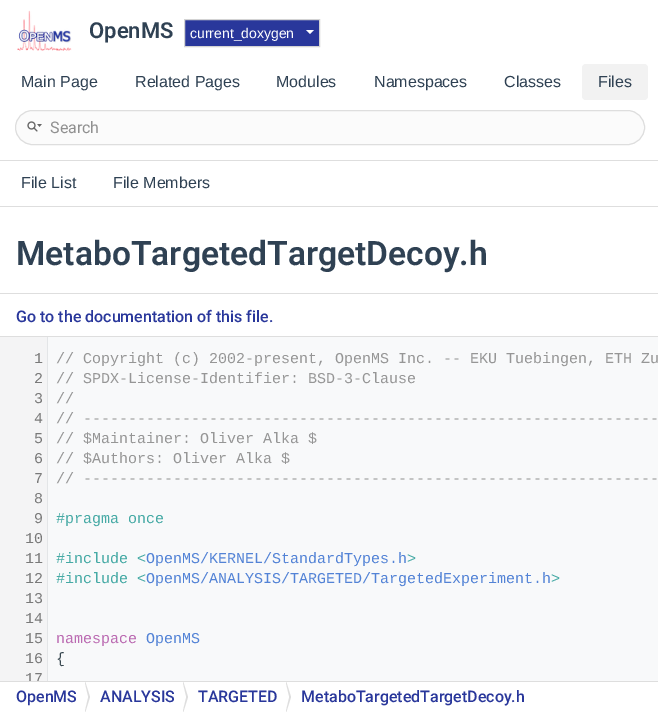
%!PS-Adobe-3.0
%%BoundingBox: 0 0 658 712
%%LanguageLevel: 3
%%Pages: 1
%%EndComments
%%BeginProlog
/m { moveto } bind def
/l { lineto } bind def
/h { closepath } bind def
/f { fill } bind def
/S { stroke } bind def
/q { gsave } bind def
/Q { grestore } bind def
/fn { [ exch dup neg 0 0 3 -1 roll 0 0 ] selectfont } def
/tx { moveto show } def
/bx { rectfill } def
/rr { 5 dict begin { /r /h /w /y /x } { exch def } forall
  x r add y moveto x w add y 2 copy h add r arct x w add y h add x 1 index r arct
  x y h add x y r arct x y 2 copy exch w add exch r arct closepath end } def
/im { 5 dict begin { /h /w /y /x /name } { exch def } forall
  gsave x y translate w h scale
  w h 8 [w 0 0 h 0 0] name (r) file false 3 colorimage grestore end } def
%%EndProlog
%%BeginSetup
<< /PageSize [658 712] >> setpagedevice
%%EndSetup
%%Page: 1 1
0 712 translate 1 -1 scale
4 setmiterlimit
1 setgray
0 0 658 712 bx
0.871 setgray
0 206 658 1 bx
(image0.raw) 17 10 55 41 im
/Roboto-SemiBold 22 fn
0.184 0.255 0.325 setrgbcolor
(OpenMS) 89 38 tx
0.161 0.216 0.608 setrgbcolor
184.5 19.5 m 319.5 19.5 l 319.5 46.5 l 184.5 46.5 l h q f Q
0.827 setgray
S
/LiberationSans-Regular 14 fn
1 setgray
(current_doxygen) 190 38 tx
306 30 m 314 30 l 310 34 l h f
0.871 setgray
0 160 658 1 bx
/LiberationSans-Regular 16 fn
0.184 0.255 0.325 setrgbcolor
(Main Page) 21 87 tx
(Related Pages) 135 87 tx
(Modules) 276 87 tx
(Namespaces) 374 87 tx
(Classes) 504 87 tx
0.949 setgray
582 64 66 36 4 rr f
0.184 0.255 0.325 setrgbcolor
(Files) 598 87 tx
0.984 setgray
15.5 110.5 629 34 17 rr q f Q
0.871 setgray
S
(image1.raw) 27 121 15 11 im
/Roboto-Regular 16 fn
0.565 setgray
(Search) 50 133 tx
/LiberationSans-Regular 16 fn
0.184 0.255 0.325 setrgbcolor
(File List) 21 188 tx
(File Members) 113 188 tx
0.871 setgray
0 293 658 1 bx
/Roboto-SemiBold 33.6 fn
0.184 0.255 0.325 setrgbcolor
(MetaboTargetedTargetDecoy.h) 16 265 tx
/Roboto-Medium 16 fn
0.161 0.216 0.608 setrgbcolor
(Go to the documentation of this file.) 16 322 tx
0.973 0.976 0.98 setrgbcolor
48 337 610 344 bx
0.871 setgray
0 336 658 1 bx
q
0 337 658 344 rectclip
0.89 0.898 0.906 setrgbcolor
-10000 -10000 m 48 -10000 l 48 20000 l -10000 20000 l h 16 350 m 16 370 l 47 370 l 47 350 l h eofill
0.957 0.957 0.961 setrgbcolor
-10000 -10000 m -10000 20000 l 47 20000 l 47 370 l 16 370 l 16 350 l 47 350 l 47 -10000 l h f
Q
0.957 0.957 0.961 setrgbcolor
16 350 31 20 bx
/LiberationMono-Regular 15 fn
0.475 setgray
(1) 34 363 tx
0.588 setgray
(// Copyright \(c\) 2002-present, OpenMS Inc. -- EKU Tuebingen, ETH Zu) 56 363 tx
0.475 setgray
(2) 34 383 tx
0.588 setgray
(// SPDX-License-Identifier: BSD-3-Clause) 56 383 tx
0.475 setgray
(3) 34 403 tx
0.588 setgray
(//) 56 403 tx
0.475 setgray
(4) 34 423 tx
0.588 setgray
(// ----------------------------------------------------------------) 56 423 tx
0.475 setgray
(5) 34 443 tx
0.588 setgray
(// $Maintainer: Oliver Alka $) 56 443 tx
0.475 setgray
(6) 34 463 tx
0.588 setgray
(// $Authors: Oliver Alka $) 56 463 tx
0.475 setgray
(7) 34 483 tx
0.588 setgray
(// ----------------------------------------------------------------) 56 483 tx
0.475 setgray
(8) 34 503 tx
(9) 34 523 tx
0.275 0.667 0.647 setrgbcolor
(#pragma once) 56 523 tx
0.475 setgray
(10) 25 543 tx
(11) 25 563 tx
0.275 0.667 0.647 setrgbcolor
(#include <) 56 563 tx
0.325 0.514 0.839 setrgbcolor
(OpenMS/KERNEL/StandardTypes.h) 146 563 tx
0.275 0.667 0.647 setrgbcolor
(>) 407 563 tx
0.475 setgray
(12) 25 583 tx
0.275 0.667 0.647 setrgbcolor
(#include <) 56 583 tx
0.325 0.514 0.839 setrgbcolor
(OpenMS/ANALYSIS/TARGETED/TargetedExperiment.h) 146 583 tx
0.275 0.667 0.647 setrgbcolor
(>) 551 583 tx
0.475 setgray
(13) 25 603 tx
(14) 25 623 tx
(15) 25 643 tx
0.733 0.42 0.698 setrgbcolor
(namespace) 56 643 tx
0.325 0.514 0.839 setrgbcolor
(OpenMS) 146 643 tx
0.475 setgray
(16) 25 663 tx
0.216 0.278 0.31 setrgbcolor
({) 56 663 tx
q
0 337 658 344 rectclip
0.475 setgray
(17) 25 683 tx
Q
0.871 setgray
0 681 658 1 bx
/Roboto-Medium 16 fn
0.161 0.216 0.608 setrgbcolor
(OpenMS) 16 702 tx
0.871 setgray
85 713 m 85 681 l 90 697 l h f
q
0 682 658 30 rectclip
1 setgray
83 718 m 83 676 l 88 697 l h f
Q
0.161 0.216 0.608 setrgbcolor
(ANALYSIS) 100 702 tx
0.871 setgray
183 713 m 183 681 l 188 697 l h f
q
0 682 658 30 rectclip
1 setgray
181 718 m 181 676 l 186 697 l h f
Q
0.161 0.216 0.608 setrgbcolor
(TARGETED) 198 702 tx
0.871 setgray
286 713 m 286 681 l 291 697 l h f
q
0 682 658 30 rectclip
1 setgray
284 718 m 284 676 l 289 697 l h f
Q
0.161 0.216 0.608 setrgbcolor
(MetaboTargetedTargetDecoy.h) 301 702 tx
showpage
%%EOF
